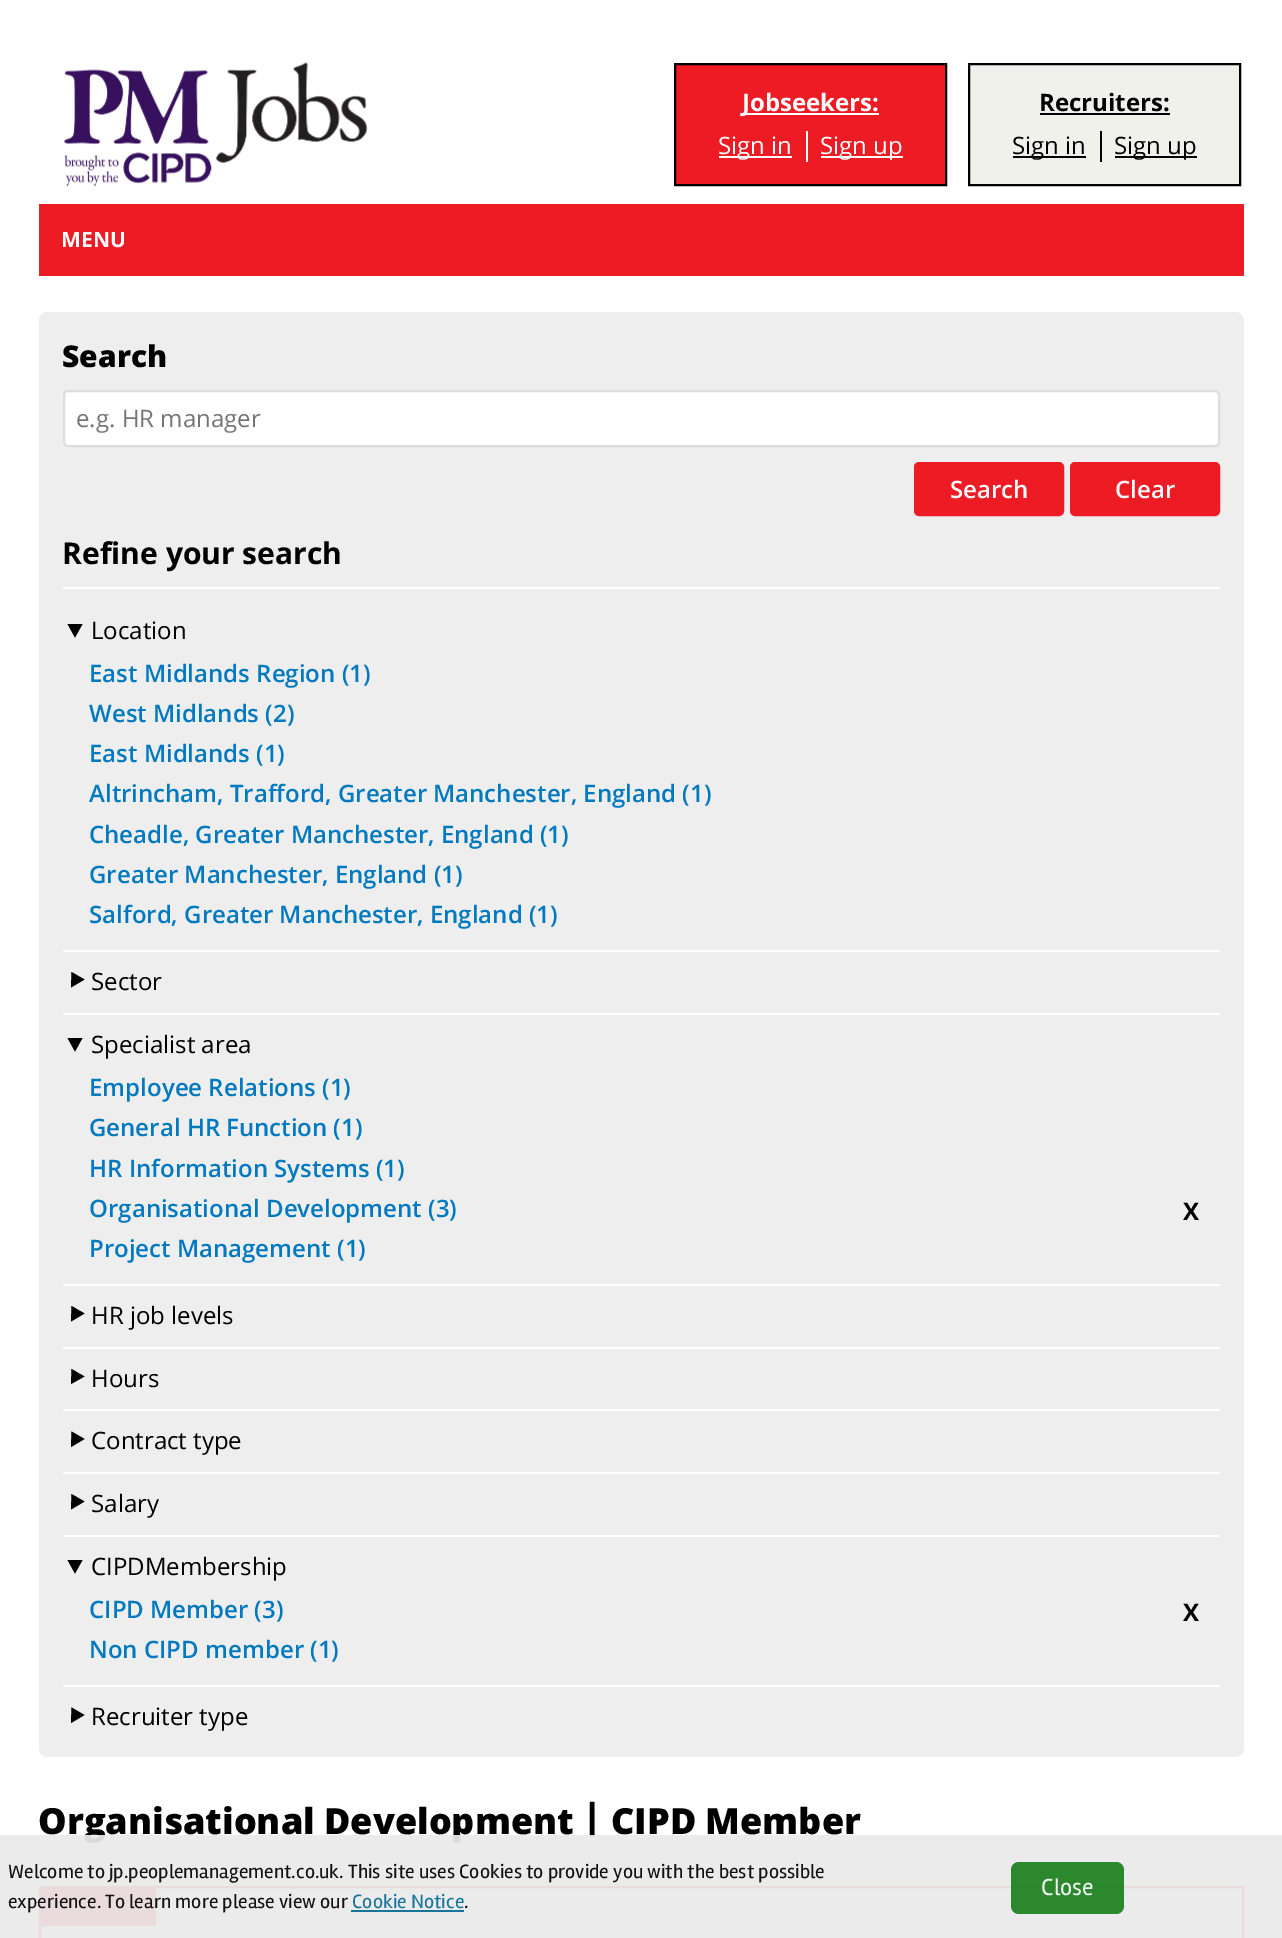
%!PS-Adobe-3.0
%%BoundingBox: 0 0 1282 1938
%%LanguageLevel: 3
%%Pages: 1
%%EndComments
%%BeginProlog
/m { moveto } bind def
/l { lineto } bind def
/h { closepath } bind def
/f { fill } bind def
/S { stroke } bind def
/q { gsave } bind def
/Q { grestore } bind def
/w { setlinewidth } bind def
/fn { [ exch dup neg 0 0 3 -1 roll 0 0 ] selectfont } def
/tx { moveto show } def
/bx { rectfill } def
/al { dup .setfillconstantalpha .setstrokeconstantalpha } def
/rr { 5 dict begin { /r /h /w /y /x } { exch def } forall
  x r add y moveto x w add y 2 copy h add r arct x w add y h add x 1 index r arct
  x y h add x y r arct x y 2 copy exch w add exch r arct closepath end } def
/im { 5 dict begin { /h /w /y /x /name } { exch def } forall
  gsave x y translate w h scale
  w h 8 [w 0 0 h 0 0] name (r) file false 3 colorimage grestore end } def
%%EndProlog
%%BeginSetup
<< /PageSize [1282 1938] /PageUsesTransparency true >> setpagedevice
%%EndSetup
%%Page: 1 1
0 .pushpdf14devicefilter
0 1938 translate 1 -1 scale
4 setmiterlimit
1 setgray
0 0 1282 1938 bx
(image0.raw) 64 62 304 125 im
0.929 0.11 0.141 setrgbcolor
675 64 m 946 64 l 946 185 l 675 185 l h q f Q
0 setgray
2 w
S
1 setgray
743 113 136 2 bx
/OpenSans-Bold 24 fn
(Jobseekers:) 742 111 tx
806 131 2 31 bx
719 156 73 2 bx
/OpenSans-Regular 24 fn
(Sign in) 718 154 tx
821 156 82 2 bx
(Sign up) 820 154 tx
0.941 0.945 0.918 setrgbcolor
969 64 m 1240 64 l 1240 185 l 969 185 l h q f Q
0 setgray
S
/OpenSans-Bold 24 fn
(Recruiters:) 1039 111 tx
1040 113 130 2 bx
1100 131 2 31 bx
1013 156 73 2 bx
/OpenSans-Regular 24 fn
(Sign in) 1012 154 tx
1115 156 82 2 bx
(Sign up) 1114 154 tx
0.929 0.11 0.141 setrgbcolor
39 204 1205 72 bx
/OpenSans-Bold 21 fn
1 setgray
(MENU) 61 247 tx
0.933 setgray
39 312 1205 1445 9 rr f
/OpenSans-ExtraBold 30 fn
0 setgray
(Search) 62 367 tx
1 setgray
64 391 1155 55 4 rr q f Q
0.867 setgray
S
/OpenSans-Regular 24 fn
0.459 setgray
(e.g. HR manager) 76 427 tx
0.929 0.11 0.141 setrgbcolor
915 463 148 52 4 rr q f Q
S
/OpenSans-SemiBold 24 fn
1 setgray
(Search) 950 498 tx
0.929 0.11 0.141 setrgbcolor
1071 463 148 52 4 rr q f Q
S
1 setgray
(Clear) 1115 498 tx
63 587 1157 2 bx
/OpenSans-Bold 30 fn
0 setgray
(Refine your search) 62 564 tx
67.5 624 m 82.5 624 l 75 637.5 l h f
/OpenSans-Regular 24 fn
(Location) 91 639 tx
1 setgray
63 950 1157 2 bx
/OpenSans-SemiBold 24 fn
0 0.475 0.753 setrgbcolor
(East Midlands Region \(1\)) 89 682 tx
(West Midlands \(2\)) 89 722 tx
(East Midlands \(1\)) 89 762 tx
(Altrincham, Trafford, Greater Manchester, England \(1\)) 89 802 tx
(Cheadle, Greater Manchester, England \(1\)) 89 843 tx
(Greater Manchester, England \(1\)) 89 883 tx
(Salford, Greater Manchester, England \(1\)) 89 923 tx
1 setgray
63 1013 1157 2 bx
0 setgray
71.5 972 m 84.5 979.5 l 71 987.5 l h f
/OpenSans-Regular 24 fn
(Sector) 91 990 tx
67.5 1038 m 82.5 1038 l 75 1051.5 l h f
(Specialist area) 91 1053 tx
1 setgray
63 1284 1157 2 bx
/OpenSans-SemiBold 24 fn
0 0.475 0.753 setrgbcolor
(Employee Relations \(1\)) 89 1096 tx
(General HR Function \(1\)) 89 1136 tx
(HR Information Systems \(1\)) 89 1177 tx
(Organisational Development \(3\)) 89 1217 tx
/OpenSans-Bold 24 fn
0 setgray
(X) 1183 1220 tx
/OpenSans-SemiBold 24 fn
0 0.475 0.753 setrgbcolor
(Project Management \(1\)) 89 1257 tx
1 setgray
63 1347 1157 2 bx
0 setgray
71.5 1306 m 84.5 1313.5 l 71 1321.5 l h f
/OpenSans-Regular 24 fn
(HR job levels) 91 1324 tx
1 setgray
63 1409 1157 2 bx
0 setgray
71.5 1369 m 84.5 1376.5 l 71 1384 l h f
(Hours) 91 1387 tx
1 setgray
63 1472 1157 2 bx
0 setgray
71.5 1431.5 m 84.5 1439 l 71 1447 l h f
(Contract type) 91 1449 tx
1 setgray
63 1535 1157 2 bx
0 setgray
71.5 1494 m 84.5 1501.5 l 71 1509.5 l h f
(Salary) 91 1512 tx
67.5 1560 m 82.5 1560 l 75 1573.5 l h f
(CIPDMembership) 91 1575 tx
1 setgray
63 1685 1157 2 bx
/OpenSans-SemiBold 24 fn
0 0.475 0.753 setrgbcolor
(CIPD Member \(3\)) 89 1618 tx
/OpenSans-Bold 24 fn
0 setgray
(X) 1183 1621 tx
/OpenSans-SemiBold 24 fn
0 0.475 0.753 setrgbcolor
(Non CIPD member \(1\)) 89 1658 tx
0 setgray
71.5 1707.5 m 84.5 1715 l 71 1723 l h f
/OpenSans-Regular 24 fn
(Recruiter type) 91 1725 tx
/OpenSans-ExtraBold 36 fn
(Organisational Development) 38 1834 tx
(|) 583 1829 tx
(CIPD Member) 611 1834 tx
0.929 0.11 0.141 setrgbcolor
40 1887 1203 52 rectstroke
41 1888 115 38 bx
0.93 al
0.918 setgray
0 1835 1282 103 bx
/Rambla-Regular 19.95 fn
1 al
0.071 setgray
(Welcome to jp.peoplemanagement.co.uk. This site uses Cookies to provide you with the best possible) 8 1878 tx
(experience. To learn more please view our) 8 1908 tx
0.09 0.455 0.608 setrgbcolor
(Cookie Notice) 352 1908 tx
351 1910 113 2 bx
0.071 setgray
(.) 464 1908 tx
0.93 al
0.118 0.506 0.118 setrgbcolor
1011 1862 113 52 8 rr f
/Rambla-Regular 24 fn
1 al
0.941 0.969 0.941 setrgbcolor
(Close) 1041 1895 tx
.poppdf14devicefilter showpage
%%EOF
